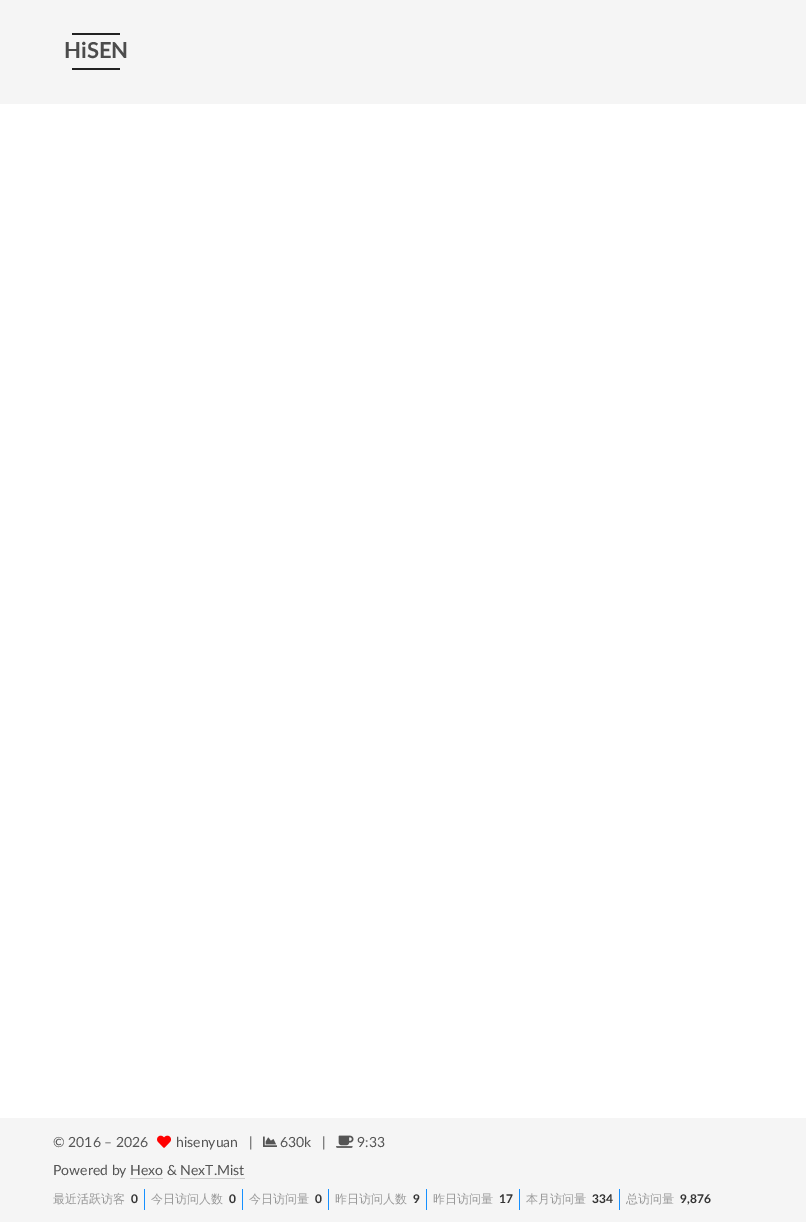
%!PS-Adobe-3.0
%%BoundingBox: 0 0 806 1222
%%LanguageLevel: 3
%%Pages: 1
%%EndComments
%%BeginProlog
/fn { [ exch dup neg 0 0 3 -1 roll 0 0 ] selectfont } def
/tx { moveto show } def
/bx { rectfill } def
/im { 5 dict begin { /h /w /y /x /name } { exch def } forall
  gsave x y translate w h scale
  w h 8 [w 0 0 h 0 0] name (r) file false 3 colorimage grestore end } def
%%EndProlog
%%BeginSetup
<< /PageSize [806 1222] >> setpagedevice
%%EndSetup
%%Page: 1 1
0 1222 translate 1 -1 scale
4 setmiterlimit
1 setgray
0 0 806 1222 bx
0.961 setgray
0 0 806 104 bx
0.133 setgray
72 33 48 2 bx
/Lato-Bold 22 fn
0.298 setgray
(HiSEN) 64 58 tx
0.133 setgray
72 68 48 2 bx
0.961 setgray
0 1118 806 104 bx
/Lato-Regular 14 fn
0.333 setgray
(© 2016 – 2026) 53 1147 tx
(image0.raw) 157 1135 14 13 im
(hisenyuan) 176 1147 tx
(|) 249 1147 tx
(image1.raw) 263 1136 14 11 im
(630k) 280 1147 tx
(|) 322 1147 tx
(image2.raw) 336 1135 18 13 im
(9:33) 357 1147 tx
(Powered by Hexo & NexT.Mist) 53 1175 tx
0.8 setgray
130 1178 33 1 bx
180 1178 65 1 bx
/WenQuanYiZenHei-Medium 12 fn
0.6 setgray
(最近活跃访客) 53 1203 tx
/Lato-Bold 12 fn
0.2 setgray
(0) 131 1203 tx
0.086 0.565 1 setrgbcolor
144 1189 1 21 bx
/WenQuanYiZenHei-Medium 12 fn
0.6 setgray
(今日访问人数) 151 1203 tx
/Lato-Bold 12 fn
0.2 setgray
(0) 229 1203 tx
0.086 0.565 1 setrgbcolor
242 1189 1 21 bx
/WenQuanYiZenHei-Medium 12 fn
0.6 setgray
(今日访问量) 249 1203 tx
/Lato-Bold 12 fn
0.2 setgray
(0) 315 1203 tx
0.086 0.565 1 setrgbcolor
328 1189 1 21 bx
/WenQuanYiZenHei-Medium 12 fn
0.6 setgray
(昨日访问人数) 335 1203 tx
/Lato-Bold 12 fn
0.2 setgray
(9) 413 1203 tx
0.086 0.565 1 setrgbcolor
426 1189 1 21 bx
/WenQuanYiZenHei-Medium 12 fn
0.6 setgray
(昨日访问量) 433 1203 tx
/Lato-Bold 12 fn
0.2 setgray
(17) 499 1203 tx
0.086 0.565 1 setrgbcolor
519 1189 1 21 bx
/WenQuanYiZenHei-Medium 12 fn
0.6 setgray
(本月访问量) 526 1203 tx
/Lato-Bold 12 fn
0.2 setgray
(334) 592 1203 tx
0.086 0.565 1 setrgbcolor
619 1189 1 21 bx
/WenQuanYiZenHei-Medium 12 fn
0.6 setgray
(总访问量) 626 1203 tx
/Lato-Bold 12 fn
0.2 setgray
(9,876) 680 1203 tx
showpage
%%EOF
